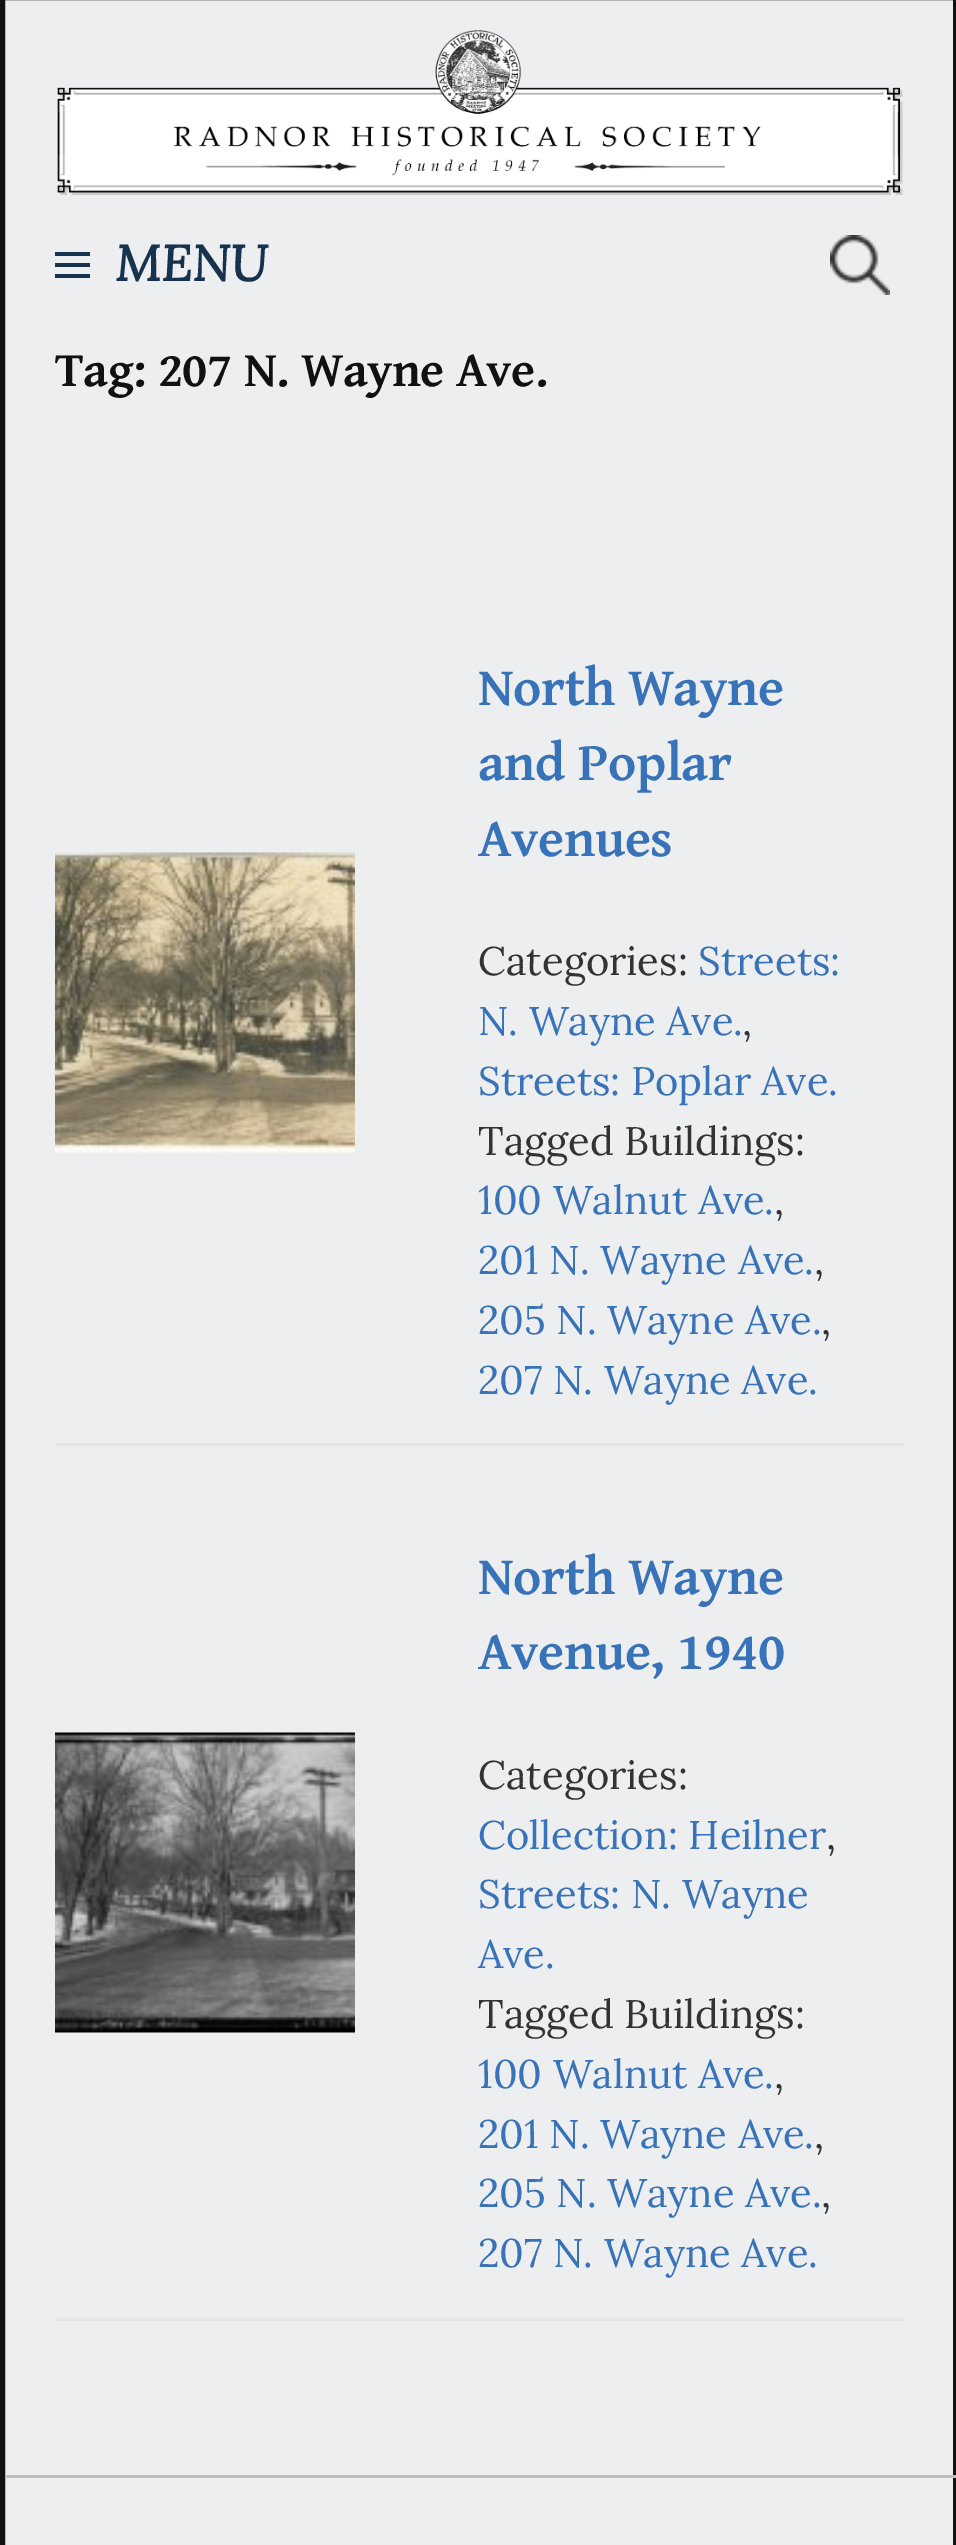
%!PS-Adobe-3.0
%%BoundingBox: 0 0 956 2545
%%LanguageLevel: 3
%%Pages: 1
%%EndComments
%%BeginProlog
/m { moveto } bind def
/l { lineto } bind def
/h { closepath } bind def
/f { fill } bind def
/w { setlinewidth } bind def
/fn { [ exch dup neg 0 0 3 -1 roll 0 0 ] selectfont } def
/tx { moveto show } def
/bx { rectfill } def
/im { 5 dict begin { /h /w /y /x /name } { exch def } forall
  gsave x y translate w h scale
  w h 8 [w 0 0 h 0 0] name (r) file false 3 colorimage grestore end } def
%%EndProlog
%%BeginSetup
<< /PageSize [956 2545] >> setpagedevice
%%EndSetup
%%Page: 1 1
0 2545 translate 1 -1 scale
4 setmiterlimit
0.925 0.933 0.937 setrgbcolor
0 0 956 2545 bx
0.067 setgray
5 w
2.5 -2.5 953 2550 rectstroke
(image0.raw) 57 30 846 165 im
0.09 0.196 0.306 setrgbcolor
55 278 m 55 274 l 90 274 l 90 278 l h 55 252 m 90 252 l 90 256 l 55 256 l h 55 267 m 55 263 l 90 263 l 90 267 l h f
/Lora-BoldItalic 50 fn
(MENU) 115 281 tx
(image1.raw) 830 235 60 60 im
/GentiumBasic-Bold 49.75 fn
0.067 setgray
55 386 m -0.5 0 (Tag: 207 N. Wayne Ave.) ashow
(image2.raw) 55 852 300 301 im
0.902 setgray
55 1443 850 3 bx
/GentiumBasic-Bold 54 fn
0.22 0.447 0.722 setrgbcolor
478 705 m -0.5 0 (North Wayne) ashow
478 780 m -0.5 0 (and Poplar) ashow
478 856 m -0.5 0 (Avenues) ashow
/Lora-Regular 39.9 fn
0.2 setgray
(Categories:) 478 975 tx
0.22 0.447 0.722 setrgbcolor
(Streets:) 698 975 tx
(N. Wayne Ave.) 478 1035 tx
0.2 setgray
(,) 742 1035 tx
0.22 0.447 0.722 setrgbcolor
(Streets: Poplar Ave.) 478 1095 tx
0.2 setgray
(Tagged Buildings:) 478 1155 tx
0.22 0.447 0.722 setrgbcolor
(100 Walnut Ave.) 478 1214 tx
0.2 setgray
(,) 774 1214 tx
0.22 0.447 0.722 setrgbcolor
(201 N. Wayne Ave.) 478 1274 tx
0.2 setgray
(,) 814 1274 tx
0.22 0.447 0.722 setrgbcolor
(205 N. Wayne Ave.) 478 1334 tx
0.2 setgray
(,) 821 1334 tx
0.22 0.447 0.722 setrgbcolor
(207 N. Wayne Ave.) 478 1394 tx
(image3.raw) 55 1732 300 301 im
0.902 setgray
55 2318 850 3 bx
/GentiumBasic-Bold 54 fn
0.22 0.447 0.722 setrgbcolor
478 1594 m -0.5 0 (North Wayne) ashow
478 1669 m -0.5 0 (Avenue, 1940) ashow
/Lora-Regular 39.9 fn
0.2 setgray
(Categories:) 478 1789 tx
0.22 0.447 0.722 setrgbcolor
(Collection: Heilner) 478 1849 tx
0.2 setgray
(,) 826 1849 tx
0.22 0.447 0.722 setrgbcolor
(Streets: N. Wayne) 478 1908 tx
(Ave.) 478 1968 tx
0.2 setgray
(Tagged Buildings:) 478 2028 tx
0.22 0.447 0.722 setrgbcolor
(100 Walnut Ave.) 478 2088 tx
0.2 setgray
(,) 774 2088 tx
0.22 0.447 0.722 setrgbcolor
(201 N. Wayne Ave.) 478 2148 tx
0.2 setgray
(,) 814 2148 tx
0.22 0.447 0.722 setrgbcolor
(205 N. Wayne Ave.) 478 2207 tx
0.2 setgray
(,) 821 2207 tx
0.22 0.447 0.722 setrgbcolor
(207 N. Wayne Ave.) 478 2267 tx
0.741 0.745 0.749 setrgbcolor
5 2475 951 3 bx
showpage
%%EOF
